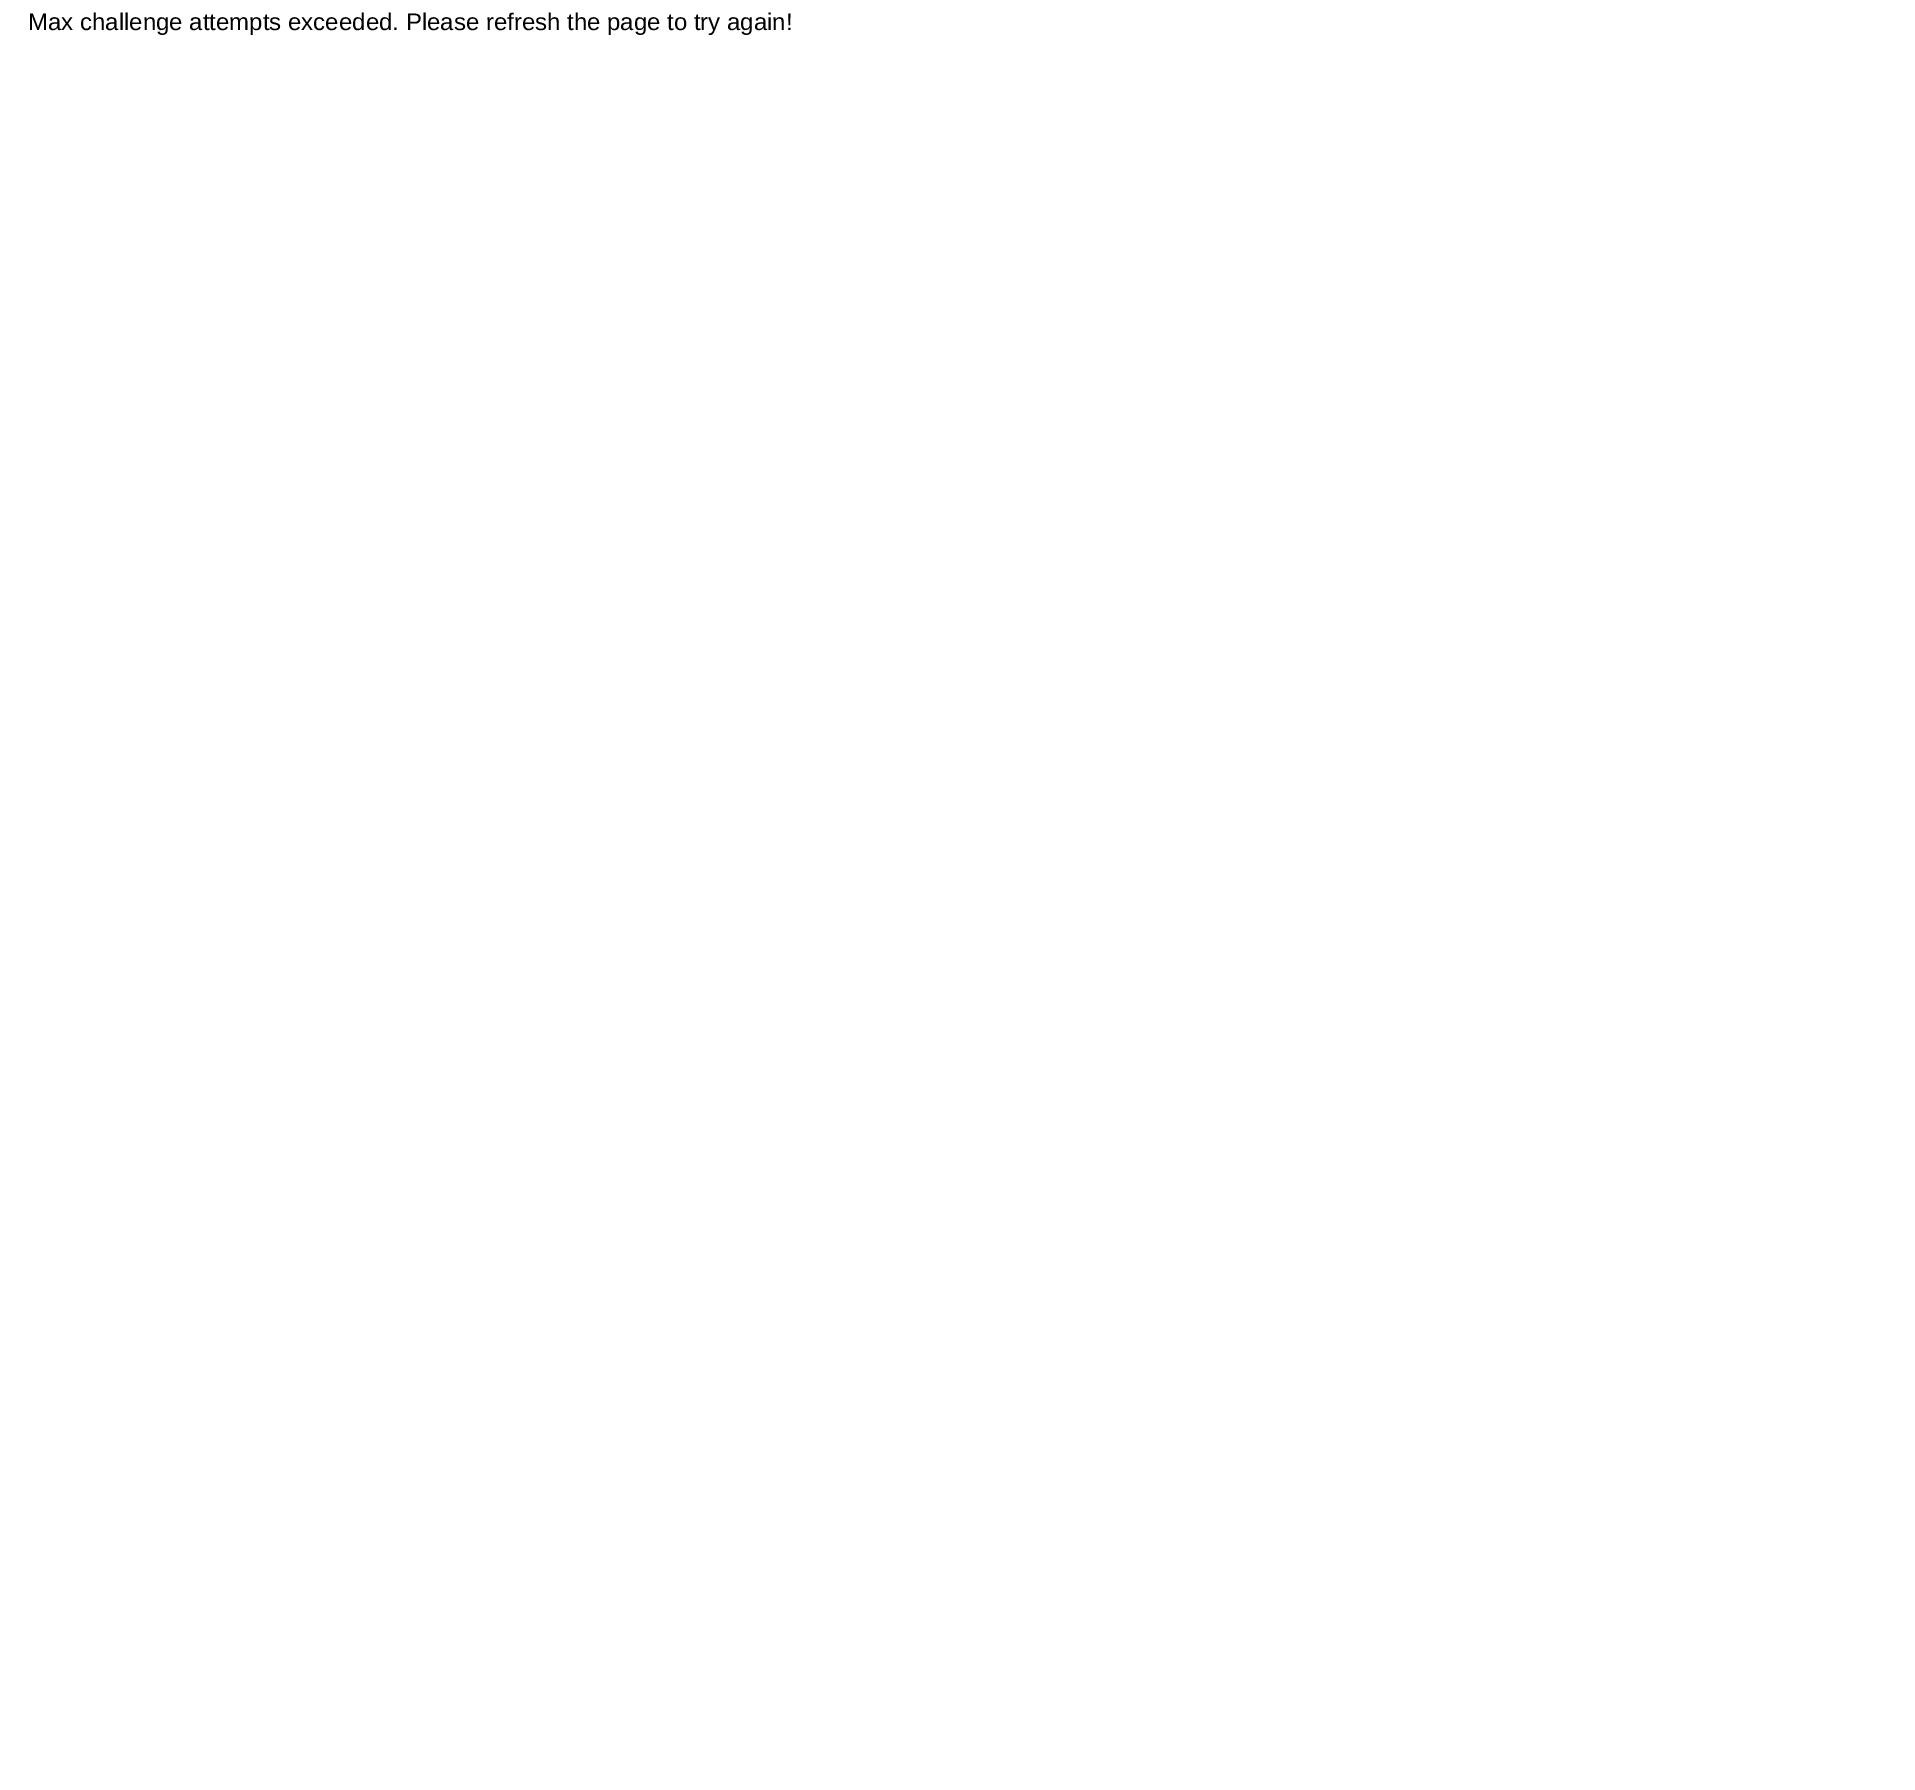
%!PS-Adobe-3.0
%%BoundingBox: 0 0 1915 1790
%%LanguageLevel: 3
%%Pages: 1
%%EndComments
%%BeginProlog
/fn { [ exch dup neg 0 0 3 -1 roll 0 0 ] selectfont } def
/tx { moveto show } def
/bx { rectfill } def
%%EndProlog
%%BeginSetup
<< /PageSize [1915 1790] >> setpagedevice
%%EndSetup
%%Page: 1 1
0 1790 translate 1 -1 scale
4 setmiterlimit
1 setgray
0 0 1915 1790 bx
/LiberationSans-Regular 24 fn
0 setgray
(Max challenge attempts exceeded. Please refresh the page to try again!) 28 30 tx
showpage
%%EOF
